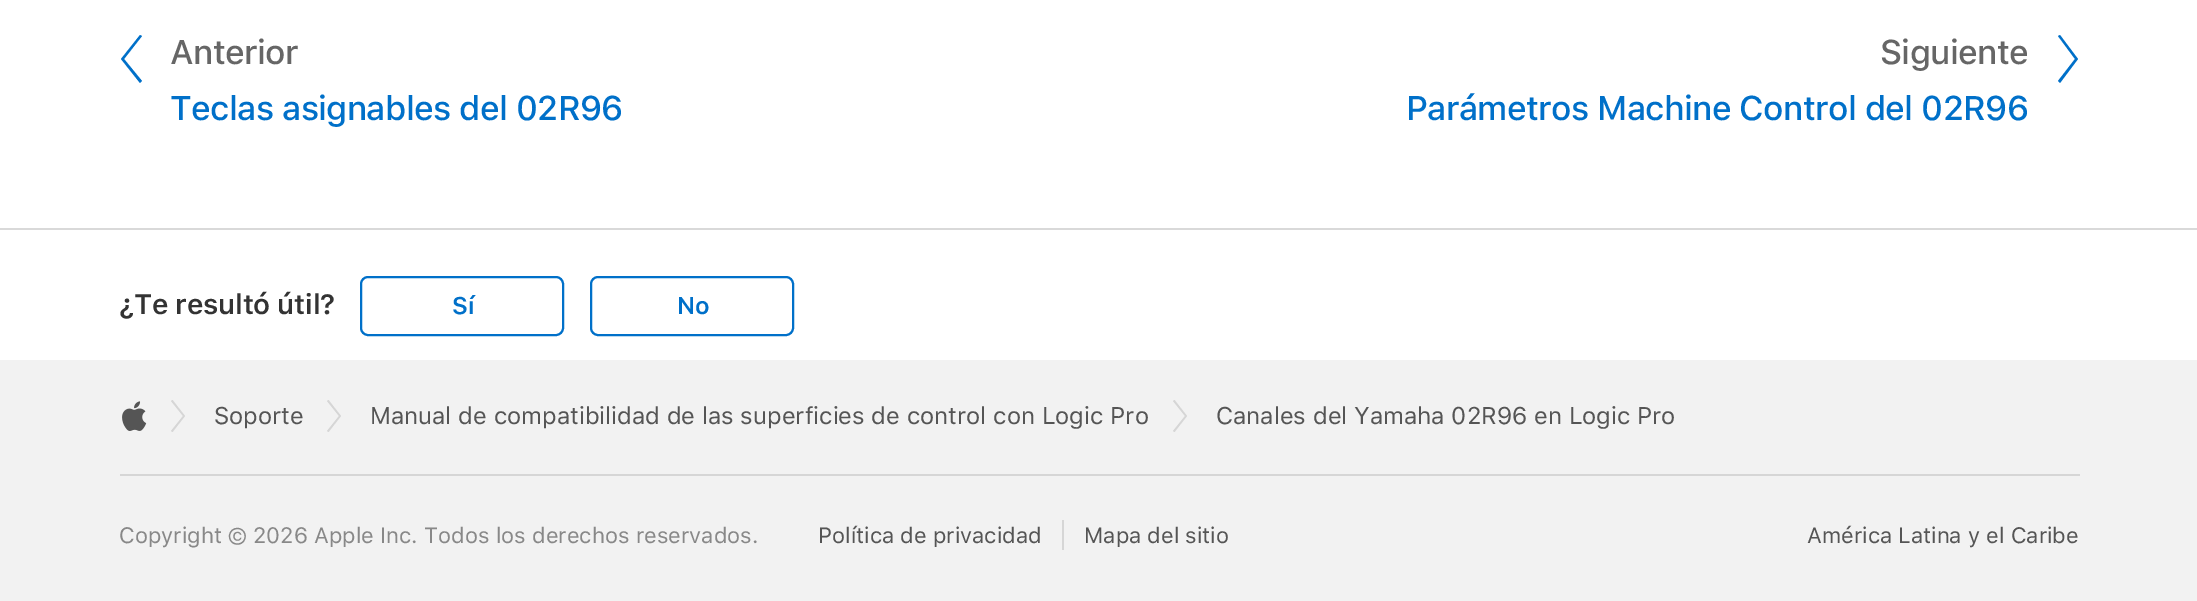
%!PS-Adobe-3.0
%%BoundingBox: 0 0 2197 601
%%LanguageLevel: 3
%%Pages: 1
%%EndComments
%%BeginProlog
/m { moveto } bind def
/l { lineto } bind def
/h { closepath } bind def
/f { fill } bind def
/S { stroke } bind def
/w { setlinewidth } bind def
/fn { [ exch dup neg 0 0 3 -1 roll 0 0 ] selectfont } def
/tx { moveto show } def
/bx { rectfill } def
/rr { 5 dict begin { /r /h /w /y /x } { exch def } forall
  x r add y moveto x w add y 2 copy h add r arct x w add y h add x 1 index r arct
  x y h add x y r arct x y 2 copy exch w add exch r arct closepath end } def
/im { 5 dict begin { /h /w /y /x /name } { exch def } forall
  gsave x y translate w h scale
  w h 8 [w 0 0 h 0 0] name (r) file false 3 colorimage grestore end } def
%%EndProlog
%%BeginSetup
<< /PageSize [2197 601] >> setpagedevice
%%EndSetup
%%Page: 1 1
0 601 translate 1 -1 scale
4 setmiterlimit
1 setgray
0 0 2197 601 bx
0 0.439 0.788 setrgbcolor
140 35 m 121 59 l 140 83 l 142 81 l 124 59 l 142 36 l h f
/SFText-Medium 34 fn
0.4 setgray
170 64 m -0.7 0 (Anterior) ashow
0 0.439 0.788 setrgbcolor
170 120 m -0.7 0 (Teclas asignables del 02R96) ashow
0.4 setgray
1880 64 m -0.7 0 (Siguiente) ashow
0 0.439 0.788 setrgbcolor
2058 36 m 2075 59 l 2058 81 l 2060 83 l 2078 59 l 2060 35 l h f
1406 120 m -0.7 0 (Parámetros Machine Control del 02R96) ashow
0.851 setgray
0 228 2197 2 bx
/SFText-SemiBold 28 fn
0.2 setgray
119 314 m -0.25 0 (¿Te resultó útil?) ashow
0 0.439 0.788 setrgbcolor
2 w
361 277 202 58 7 rr S
/SFText-SemiBold 24 fn
(Sí) 452 314 tx
591 277 202 58 7 rr S
(No) 677 314 tx
0.949 setgray
0 360 2197 241 bx
(image0.raw) 122 401 25 30 im
0.839 setgray
172.5 400 m 185 416 l 172.5 432 l 171 431 l 183 416 l 171 401 l h f
/SFText-Regular 24 fn
0.333 setgray
(Soporte) 214 424 tx
0.839 setgray
328.5 400 m 341 416 l 328.5 432 l 327 431 l 339 416 l 327 401 l h f
0.333 setgray
(Manual de compatibilidad de las superficies de control con Logic Pro) 370 424 tx
0.839 setgray
1174.5 400 m 1187 416 l 1174.5 432 l 1173 431 l 1185 416 l 1173 401 l h f
0.333 setgray
(Canales del Yamaha 02R96 en Logic Pro) 1216 424 tx
0.839 setgray
120 474 1960 2 bx
/SFText-Regular 22.1 fn
0.533 setgray
(Copyright © 2026 Apple Inc. Todos los derechos reservados.) 119 543 tx
0.839 setgray
1062 520 2 30 bx
0.333 setgray
(Política de privacidad) 818 543 tx
(Mapa del sitio) 1084 543 tx
(América Latina y el Caribe) 1807 543 tx
showpage
%%EOF
